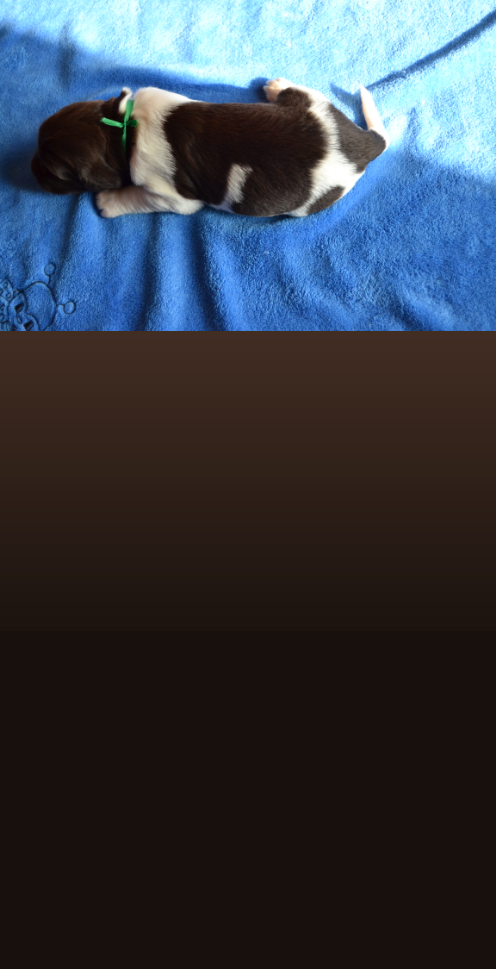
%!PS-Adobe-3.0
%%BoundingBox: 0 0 496 969
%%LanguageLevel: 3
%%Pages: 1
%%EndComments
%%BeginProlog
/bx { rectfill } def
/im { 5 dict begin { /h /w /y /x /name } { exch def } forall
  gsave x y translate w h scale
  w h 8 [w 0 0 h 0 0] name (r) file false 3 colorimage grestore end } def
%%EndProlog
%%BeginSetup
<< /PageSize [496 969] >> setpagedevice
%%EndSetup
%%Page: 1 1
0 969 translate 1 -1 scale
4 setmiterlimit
0.09 0.063 0.047 setrgbcolor
0 0 496 969 bx
(image0.raw) 0 331 496 300 im
(image1.raw) 0 0 496 331 im
showpage
%%EOF
